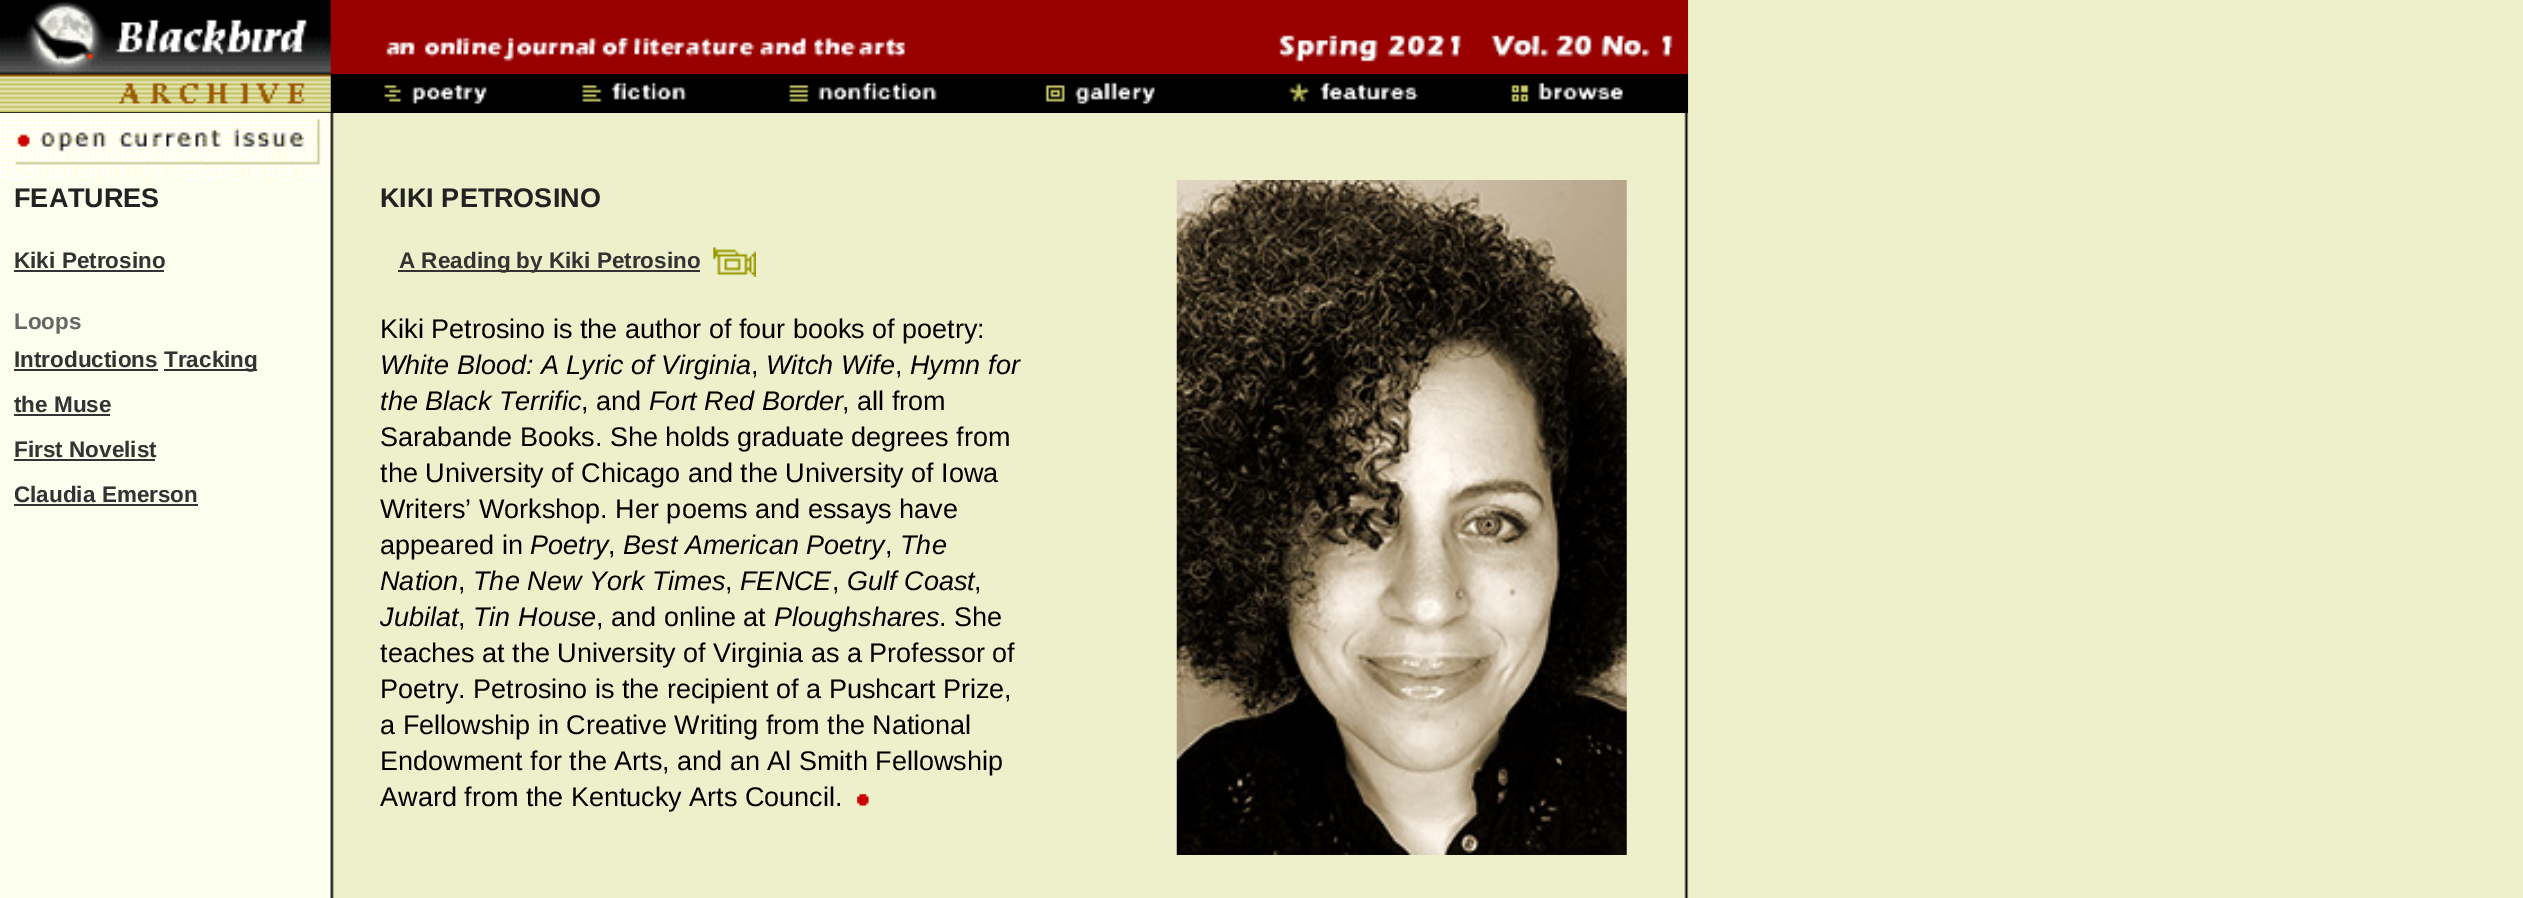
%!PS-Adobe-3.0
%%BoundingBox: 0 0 2523 898
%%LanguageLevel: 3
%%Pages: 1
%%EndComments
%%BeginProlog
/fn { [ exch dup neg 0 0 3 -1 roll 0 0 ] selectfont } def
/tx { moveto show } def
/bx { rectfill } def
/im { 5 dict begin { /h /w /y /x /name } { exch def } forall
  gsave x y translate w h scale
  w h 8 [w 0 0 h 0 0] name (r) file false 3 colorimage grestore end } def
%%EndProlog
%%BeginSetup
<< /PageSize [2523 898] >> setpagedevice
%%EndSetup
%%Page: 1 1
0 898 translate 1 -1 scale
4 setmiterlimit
0.933 0.941 0.8 setrgbcolor
0 0 2523 898 bx
(image0.raw) 0 0 1689 898 im
0.6 0 0 setrgbcolor
330 0 1358 74 bx
(image1.raw) 0 0 331 74 im
(image2.raw) 380 37 534 37 im
(image3.raw) 1226 35 459 39 im
0 setgray
0 74 1688 39 bx
(image4.raw) 0 74 331 39 im
(image5.raw) 384 83 103 22 im
(image6.raw) 582 82 105 20 im
(image7.raw) 789 82 148 20 im
(image8.raw) 1045 82 110 23 im
(image9.raw) 1288 82 131 20 im
(image10.raw) 1511 82 112 20 im
(image11.raw) 0 113 329 67 im
/LiberationSans-Bold 27 fn
0.133 setgray
(FEATURES) 14 207 tx
/LiberationSans-Bold 22.5 fn
0.2 setgray
(Kiki Petrosino) 14 268 tx
14 270 150 2 bx
0.4 setgray
(Loops) 14 329 tx
0.2 setgray
(Introductions) 14 367 tx
14 369 144 2 bx
164 369 93 2 bx
(Tracking) 164 367 tx
(the Muse) 14 412 tx
14 414 96 2 bx
(First Novelist) 14 457 tx
14 459 141 2 bx
(Claudia Emerson) 14 502 tx
14 504 184 2 bx
/LiberationSans-Bold 27 fn
0.133 setgray
(KIKI PETROSINO) 380 207 tx
(image12.raw) 1176 180 451 675 im
0.2 setgray
398 270 302 2 bx
/LiberationSans-Bold 22.5 fn
(A Reading by Kiki Petrosino) 399 268 tx
(image13.raw) 713 247 43 30 im
/LiberationSans-Regular 27 fn
0 setgray
(Kiki Petrosino is the author of four books of poetry:) 380 338 tx
/LiberationSans-Italic 27 fn
(White Blood: A Lyric of Virginia) 380 374 tx
/LiberationSans-Regular 27 fn
(,) 751 374 tx
/LiberationSans-Italic 27 fn
(Witch Wife) 766 374 tx
/LiberationSans-Regular 27 fn
(,) 895 374 tx
/LiberationSans-Italic 27 fn
(Hymn for) 910 374 tx
(the Black Terrific) 380 410 tx
/LiberationSans-Regular 27 fn
(, and) 581 410 tx
/LiberationSans-Italic 27 fn
(Fort Red Border) 649 410 tx
/LiberationSans-Regular 27 fn
(, all from) 842 410 tx
(Sarabande Books. She holds graduate degrees from) 380 446 tx
(the University of Chicago and the University of Iowa) 380 482 tx
(Writers’ Workshop. Her poems and essays have) 380 518 tx
(appeared in) 380 554 tx
/LiberationSans-Italic 27 fn
(Poetry) 530 554 tx
/LiberationSans-Regular 27 fn
(,) 608 554 tx
/LiberationSans-Italic 27 fn
(Best American Poetry) 623 554 tx
/LiberationSans-Regular 27 fn
(,) 885 554 tx
/LiberationSans-Italic 27 fn
(The) 900 554 tx
(Nation) 380 590 tx
/LiberationSans-Regular 27 fn
(,) 458 590 tx
/LiberationSans-Italic 27 fn
(The New York Times) 473 590 tx
/LiberationSans-Regular 27 fn
(,) 725 590 tx
/LiberationSans-Italic 27 fn
(FENCE) 740 590 tx
/LiberationSans-Regular 27 fn
(,) 832 590 tx
/LiberationSans-Italic 27 fn
(Gulf Coast) 847 590 tx
/LiberationSans-Regular 27 fn
(,) 974 590 tx
/LiberationSans-Italic 27 fn
(Jubilat) 380 626 tx
/LiberationSans-Regular 27 fn
(,) 458 626 tx
/LiberationSans-Italic 27 fn
(Tin House) 473 626 tx
/LiberationSans-Regular 27 fn
(, and online at) 596 626 tx
/LiberationSans-Italic 27 fn
(Ploughshares) 774 626 tx
/LiberationSans-Regular 27 fn
(. She) 939 626 tx
(teaches at the University of Virginia as a Professor of) 380 662 tx
(Poetry. Petrosino is the recipient of a Pushcart Prize,) 380 698 tx
(a Fellowship in Creative Writing from the National) 380 734 tx
(Endowment for the Arts, and an Al Smith Fellowship) 380 770 tx
(Award from the Kentucky Arts Council.) 380 806 tx
(image14.raw) 857 794 12 12 im
showpage
%%EOF
